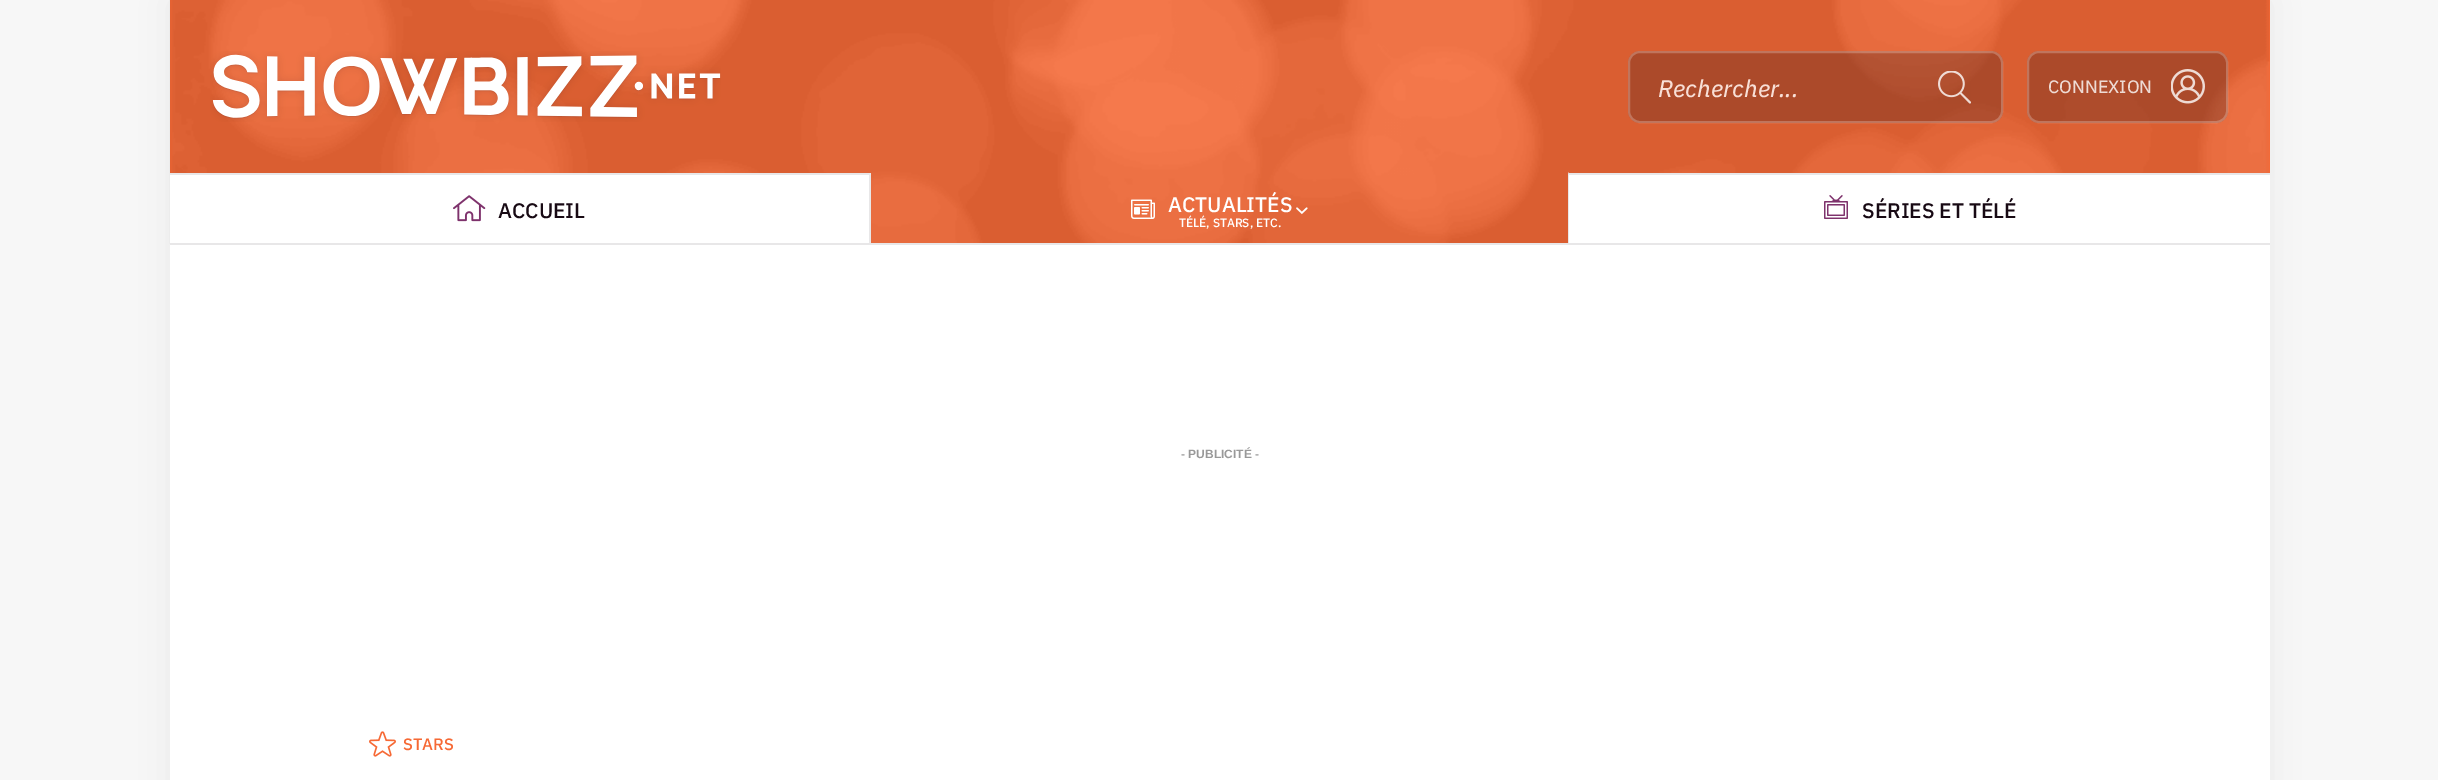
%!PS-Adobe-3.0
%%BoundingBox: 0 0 2438 780
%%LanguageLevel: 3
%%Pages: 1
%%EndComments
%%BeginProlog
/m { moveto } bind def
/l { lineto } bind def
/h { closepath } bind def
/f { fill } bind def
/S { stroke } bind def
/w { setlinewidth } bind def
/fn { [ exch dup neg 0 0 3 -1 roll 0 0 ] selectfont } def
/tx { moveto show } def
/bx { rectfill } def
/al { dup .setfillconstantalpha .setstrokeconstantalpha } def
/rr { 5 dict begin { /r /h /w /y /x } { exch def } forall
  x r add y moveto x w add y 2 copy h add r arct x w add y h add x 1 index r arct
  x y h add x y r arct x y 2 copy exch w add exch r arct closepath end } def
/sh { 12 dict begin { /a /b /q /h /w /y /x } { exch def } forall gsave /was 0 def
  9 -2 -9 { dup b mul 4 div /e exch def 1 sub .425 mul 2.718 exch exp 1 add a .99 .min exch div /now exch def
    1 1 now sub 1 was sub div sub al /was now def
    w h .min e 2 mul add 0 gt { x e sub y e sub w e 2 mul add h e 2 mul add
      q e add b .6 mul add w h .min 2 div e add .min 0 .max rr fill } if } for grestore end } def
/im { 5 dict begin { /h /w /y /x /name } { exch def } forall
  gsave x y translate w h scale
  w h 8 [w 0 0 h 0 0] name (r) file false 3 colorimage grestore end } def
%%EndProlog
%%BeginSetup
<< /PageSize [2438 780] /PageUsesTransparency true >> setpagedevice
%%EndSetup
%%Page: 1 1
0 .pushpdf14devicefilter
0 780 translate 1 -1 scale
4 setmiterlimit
0.969 setgray
0 0 2438 780 bx
0.094 0.039 0.078 setrgbcolor
170 0 2100 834 0 18 0.05 sh
1 setgray
170 245 2100 535 bx
0.965 0.412 0.208 setrgbcolor
170 0 2100 243 bx
(image0.raw) 169 0 2101 244 im
(image1.raw) 210 51 511 71 im
0.24 al
0.094 0.039 0.078 setrgbcolor
1628 51 375 72 12 rr f
1 setgray
2 w
1629 52 373 70 11 rr S
/IBMPlexSans-Italic 24 fn
1 al
0.973 0.875 0.839 setrgbcolor
(Rechercher...) 1658 97 tx
(image2.raw) 1938 71 33 33 im
0.24 al
0.094 0.039 0.078 setrgbcolor
2027 51 201 72 12 rr f
1 setgray
2028 52 199 70 11 rr S
/IBMPlexSans-Regular 18 fn
1 al
0.933 0.859 0.831 setrgbcolor
(CONNEXION) 2048 93 tx
(image3.raw) 2171 69 34 35 im
1 setgray
170 175 699 68 bx
0.91 0.906 0.91 setrgbcolor
170 173 700 2 bx
869 173 2 72 bx
170 243 700 2 bx
(image4.raw) 453 195 33 27 im
/IBMPlexSans-Medium 21 fn
0.094 0.039 0.078 setrgbcolor
(ACCUEIL) 498 218 tx
0.91 0.906 0.91 setrgbcolor
1569 172 m 1569 244 l 1568 243 l 1568 174 l h f
870 243 1400 2 bx
(image5.raw) 1131 199 24 20 im
1 setgray
(ACTUALITÉS) 1168 212 tx
/IBMPlexSans-Medium 12 fn
(TÉLÉ, STARS, ETC.) 1179 227 tx
(image6.raw) 1296 207 12 8 im
1569 175 701 68 bx
0.91 0.906 0.91 setrgbcolor
1569 173 701 2 bx
(image7.raw) 1824 195 24 24 im
/IBMPlexSans-Medium 21 fn
0.094 0.039 0.078 setrgbcolor
(SÉRIES ET TÉLÉ) 1862 218 tx
/LiberationSans-Bold 12 fn
0.6 setgray
(- PUBLICITÉ -) 1181 458 tx
(image8.raw) 369 731 27 26 im
/IBMPlexSans-Medium 16.5 fn
0.965 0.412 0.208 setrgbcolor
(STARS) 403 750 tx
.poppdf14devicefilter showpage
%%EOF
